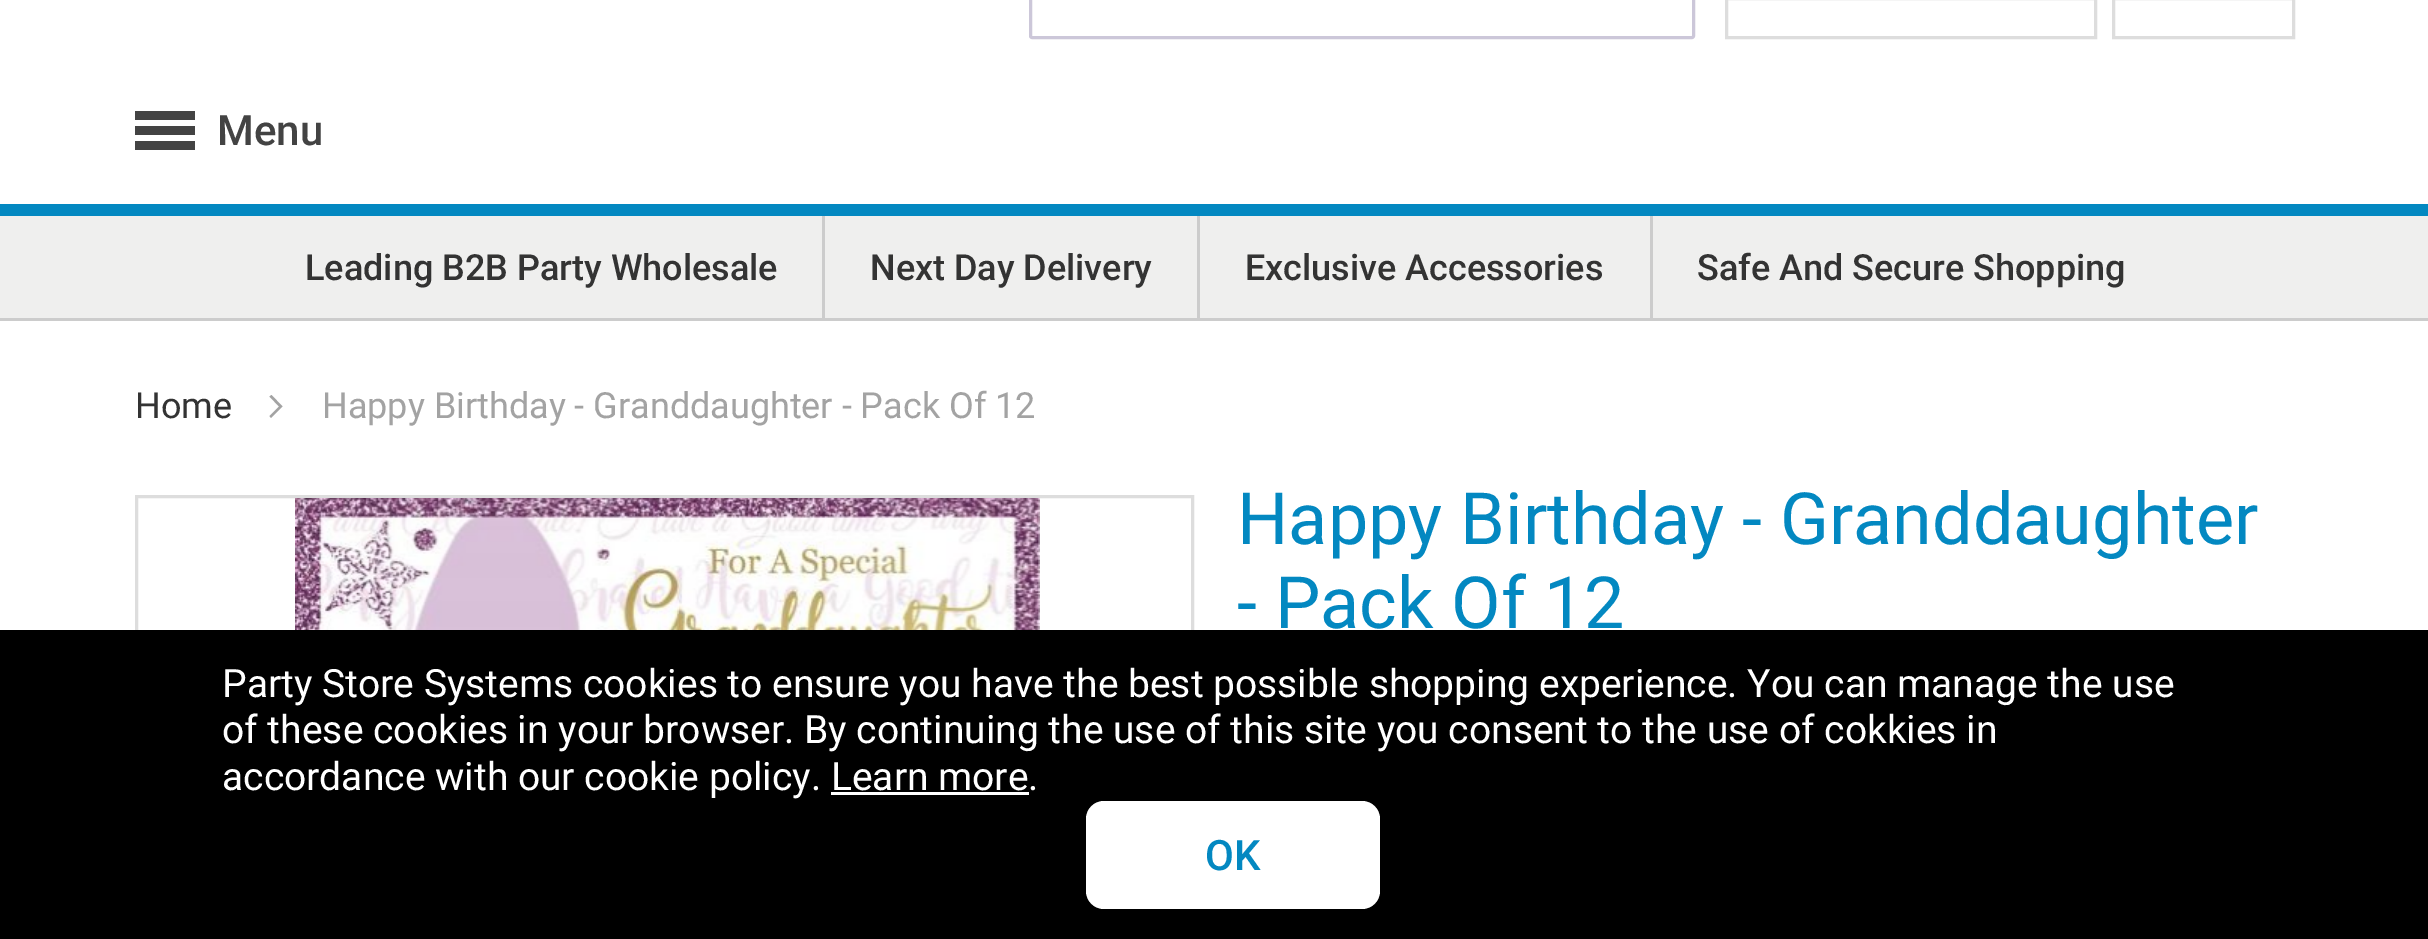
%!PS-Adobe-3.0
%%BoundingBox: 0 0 2428 939
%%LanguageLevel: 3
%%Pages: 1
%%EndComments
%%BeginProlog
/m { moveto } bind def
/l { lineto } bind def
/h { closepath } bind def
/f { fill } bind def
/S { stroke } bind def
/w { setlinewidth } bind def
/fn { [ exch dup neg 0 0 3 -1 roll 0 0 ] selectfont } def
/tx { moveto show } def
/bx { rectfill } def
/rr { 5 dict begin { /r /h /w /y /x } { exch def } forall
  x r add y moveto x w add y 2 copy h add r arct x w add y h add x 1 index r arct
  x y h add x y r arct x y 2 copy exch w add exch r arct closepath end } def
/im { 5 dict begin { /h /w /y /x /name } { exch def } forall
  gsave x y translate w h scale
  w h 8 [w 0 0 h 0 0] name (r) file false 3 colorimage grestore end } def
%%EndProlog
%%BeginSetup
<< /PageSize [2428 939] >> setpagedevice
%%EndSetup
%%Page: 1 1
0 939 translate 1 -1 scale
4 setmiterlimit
1 setgray
0 0 2428 939 bx
0.8 0.78 0.851 setrgbcolor
3 w
1030.5 -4.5 663 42 1.5 rr S
0.867 setgray
1726.5 -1.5 369 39 rectstroke
2113.5 -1.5 180 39 rectstroke
0.012 0.533 0.757 setrgbcolor
0 204 2428 12 bx
0.263 setgray
135 111 60 9 bx
135 126 60 9 bx
135 141 60 9 bx
/Roboto-Medium 42 fn
(Menu) 217 145 tx
0.937 0.937 0.933 setrgbcolor
0 216 2428 102 bx
0.8 setgray
0 318 2428 3 bx
822 216 3 102 bx
/Roboto-Medium 36 fn
0.2 setgray
(Leading B2B Party Wholesale) 305 280 tx
0.8 setgray
1197 216 3 102 bx
0.2 setgray
(Next Day Delivery) 870 280 tx
0.8 setgray
1650 216 3 102 bx
0.2 setgray
(Exclusive Accessories) 1245 280 tx
(Safe And Secure Shopping) 1697 280 tx
/Roboto-Regular 36 fn
(Home) 135 418 tx
0.639 setgray
282.5 406.5 m 271.5 395 l 269.5 396.5 l 279 406.5 l 269.5 416 l 271 418 l h f
(Happy Birthday - Granddaughter - Pack Of 12) 322 418 tx
0.867 setgray
136.5 496.5 1056 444 rectstroke
(image0.raw) 295 498 745 132 im
/Roboto-Regular 72 fn
0.012 0.533 0.757 setrgbcolor
(Happy Birthday - Granddaughter) 1237 544 tx
(- Pack Of 12) 1237 628 tx
0 setgray
0 630 2428 309 bx
/Roboto-Regular 39 fn
1 setgray
(Party Store Systems cookies to ensure you have the best possible shopping experience. You can manage the use) 222 697 tx
(of these cookies in your browser. By continuing the use of this site you consent to the use of cokkies in) 222 743 tx
(accordance with our cookie policy. Learn more.) 222 790 tx
831 792 198 3 bx
1086 801 294 108 18 rr f
/Roboto-Medium 42 fn
0.012 0.533 0.757 setrgbcolor
(OK) 1205 870 tx
showpage
%%EOF
